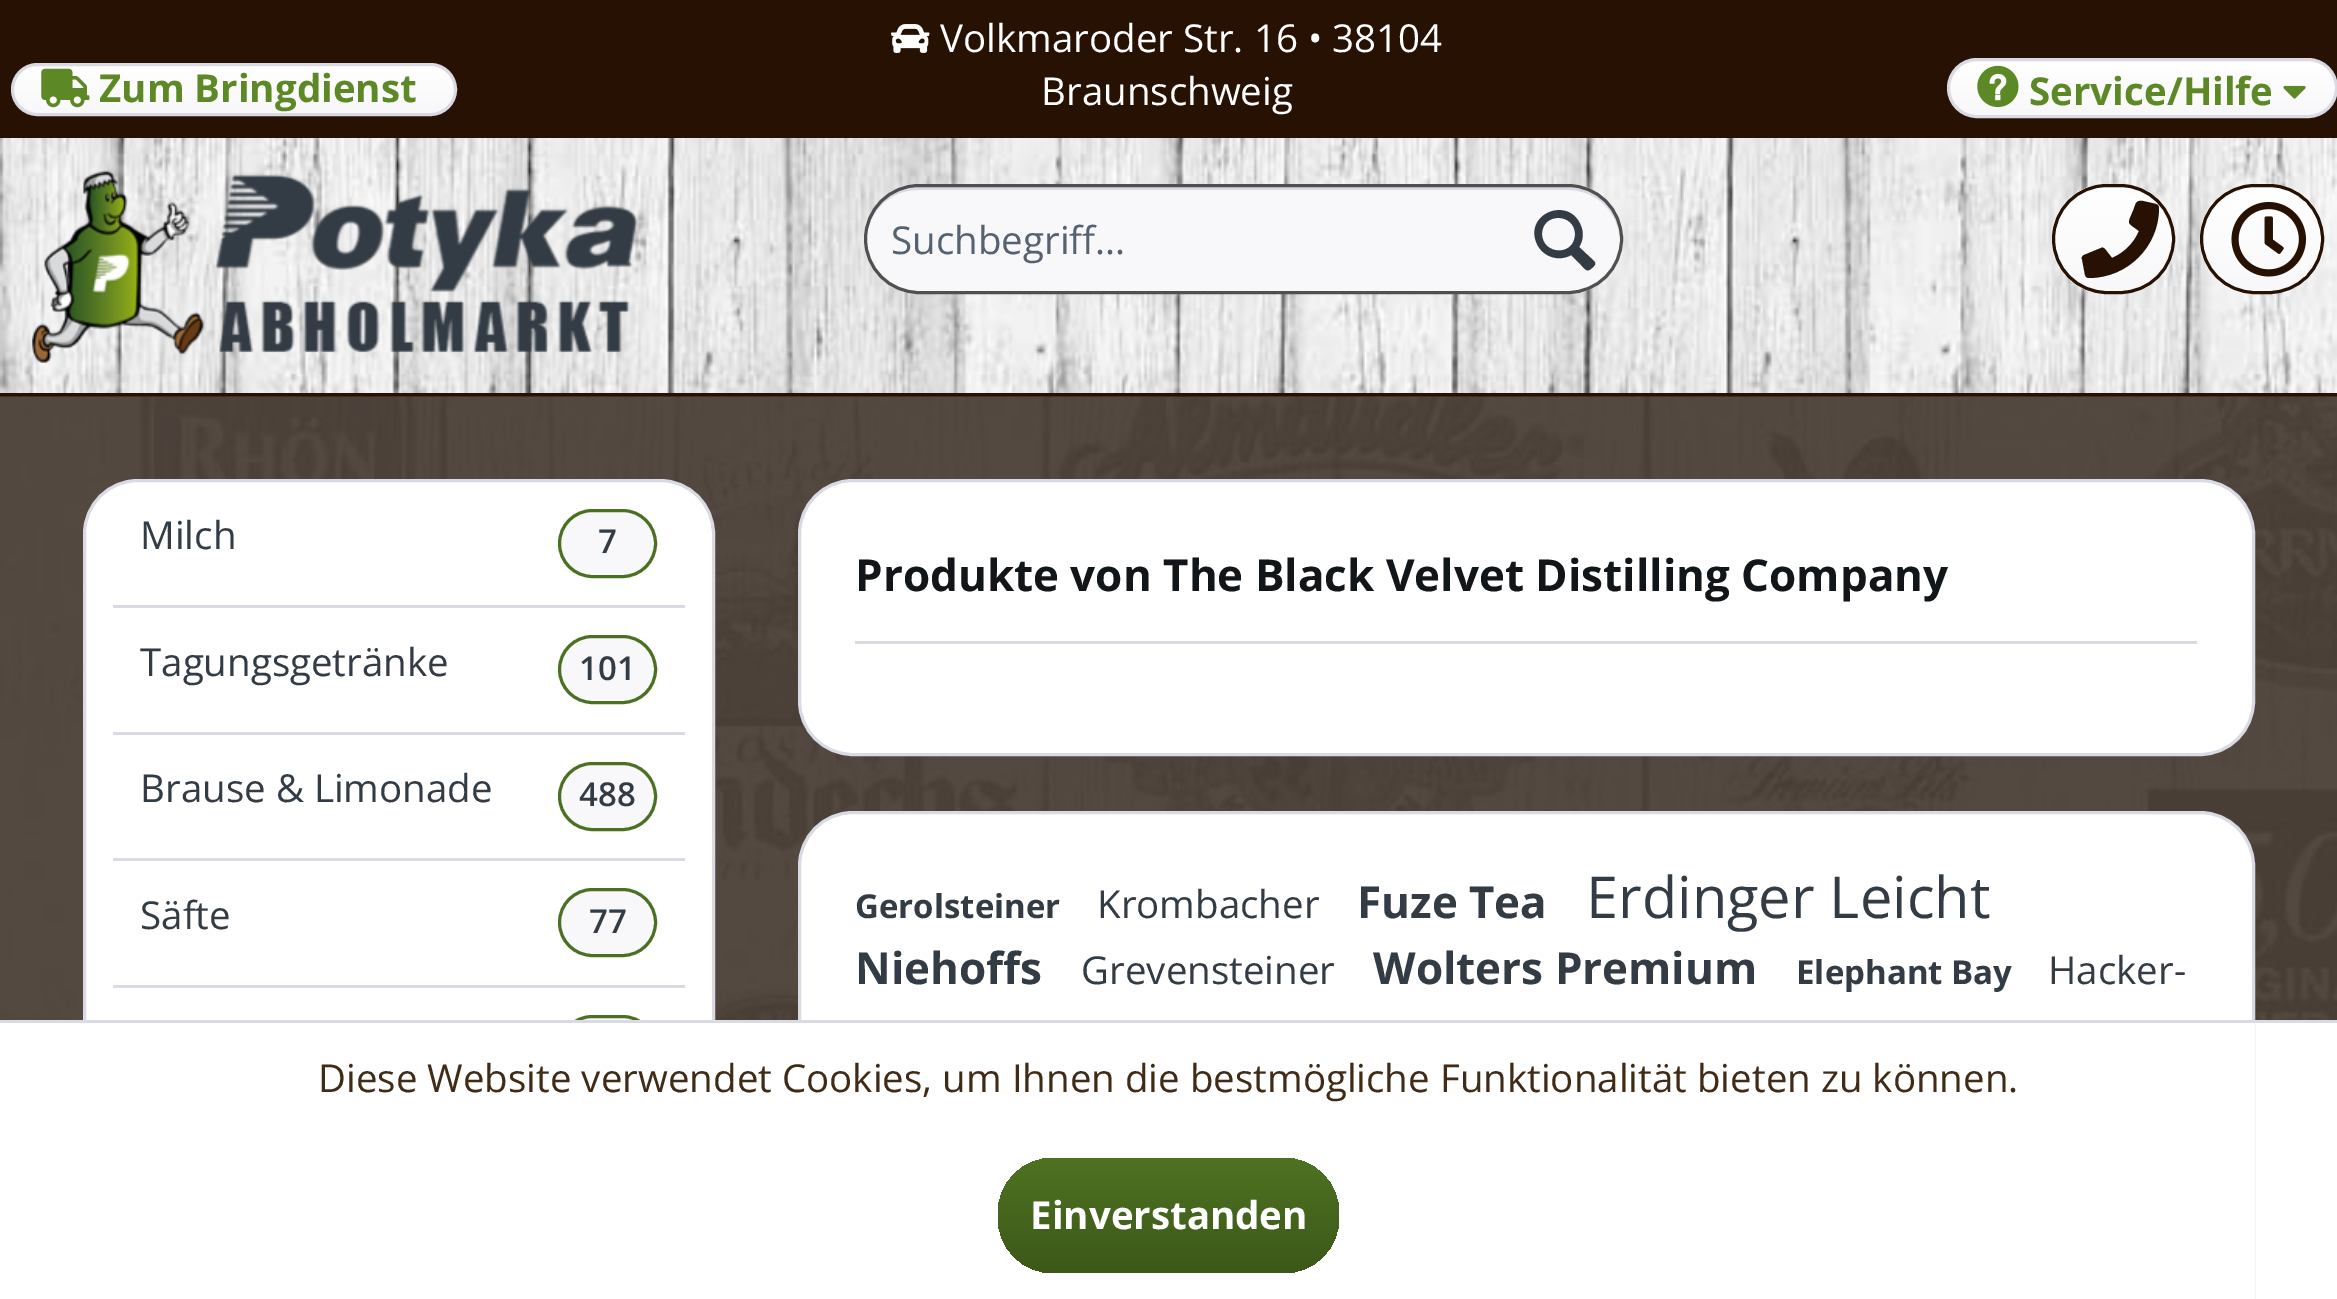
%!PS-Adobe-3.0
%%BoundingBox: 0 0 2337 1299
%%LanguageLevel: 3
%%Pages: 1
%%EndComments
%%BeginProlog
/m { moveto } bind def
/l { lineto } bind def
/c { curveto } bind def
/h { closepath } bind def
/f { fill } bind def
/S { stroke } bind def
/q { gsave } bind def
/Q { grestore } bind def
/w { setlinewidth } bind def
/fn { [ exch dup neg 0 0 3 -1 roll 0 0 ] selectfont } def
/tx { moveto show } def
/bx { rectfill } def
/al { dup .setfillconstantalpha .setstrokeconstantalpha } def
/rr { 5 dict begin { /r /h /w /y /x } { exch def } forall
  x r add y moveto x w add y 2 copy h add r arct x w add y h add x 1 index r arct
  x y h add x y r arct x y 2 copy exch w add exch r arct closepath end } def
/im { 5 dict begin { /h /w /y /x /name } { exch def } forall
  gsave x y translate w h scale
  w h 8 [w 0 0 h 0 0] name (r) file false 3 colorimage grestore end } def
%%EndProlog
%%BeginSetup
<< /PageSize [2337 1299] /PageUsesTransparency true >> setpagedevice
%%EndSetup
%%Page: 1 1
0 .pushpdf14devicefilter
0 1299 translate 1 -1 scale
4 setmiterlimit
1 setgray
0 0 2337 1299 bx
(image0.raw) 0 396 2337 624 im
(image1.raw) 0 138 2337 255 im
0.153 0.067 0.012 setrgbcolor
0 0 2337 138 bx
q 14 66 440 47 23.5 rr clip newpath
<< /ShadingType 2 /ColorSpace /DeviceRGB /Coords [234 66 234 113] /Extend [true true] /Function << /FunctionType 2 /Domain [0 1] /C0 [1 1 1] /C1 [0.973 0.973 0.98] /N 1 >> >> shfill Q
0.855 0.855 0.898 setrgbcolor
3 w
12.5 64.5 443 50 25 rr S
(image2.raw) 41 68 49 40 im
/OpenSans-Bold 38.5 fn
0.361 0.533 0.145 setrgbcolor
(Zum Bringdienst) 99 102 tx
(image3.raw) 891 24 39 29 im
/OpenSans-Regular 38.5 fn
1 setgray
(Volkmaroder Str. 16 • 38104) 940 52 tx
(Braunschweig) 1041 105 tx
q 1950 61 385 55 27.5 rr clip newpath
<< /ShadingType 2 /ColorSpace /DeviceRGB /Coords [2142 60 2142 116] /Extend [true true] /Function << /FunctionType 2 /Domain [0 1] /C0 [1 1 1] /C1 [0.973 0.973 0.98] /N 1 >> >> shfill Q
0.855 0.855 0.898 setrgbcolor
1948.5 59.5 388 57 28.5 rr S
(image4.raw) 1977 65 42 43 im
/OpenSans-Bold 38.5 fn
0.361 0.533 0.145 setrgbcolor
(Service/Hilfe) 2029 105 tx
(image5.raw) 2283 85 23 14 im
(image6.raw) 31 170 607 193 im
0.973 0.973 0.98 setrgbcolor
864 184 759 110 55 rr f
0.855 0.855 0.898 setrgbcolor
918 190 m 1568 190 l 1596 190 1619 212 1620 241 c 1621 211 1597 187 1568 187 c 918 187 l 889 187 865 211 866 241 c 867 212 890 190 918 190 c h f
0.314 setgray
865.5 185.5 756 107 53.5 rr S
/OpenSans-Regular 38.5 fn
0.329 0.384 0.443 setrgbcolor
(Suchbegriff...) 891 254 tx
0.2 0.235 0.271 setrgbcolor
1594 261 m 1579 247 l 1583 241 1584 233 1581 226 c 1569 195 1523 214 1537 244 c 1543 257 1559 262 1571 255 c 1581 265 l 1585 269 1587 273 1592 268 c 1594 266 1597 264 1594 261 c h 1542 234 m 1542 212 1575 213 1575 234 c 1575 257 1542 255 1542 234 c h f
q
2052 184 123 110 55 rr clip newpath
q 2052 187 m 2175 187 l 2175 292 l 2052 292 l h clip newpath
<< /ShadingType 2 /ColorSpace /DeviceRGB /Coords [2113 187 2113 292] /Extend [true true] /Function << /FunctionType 2 /Domain [0 1] /C0 [1 1 1] /C1 [0.973 0.973 0.98] /N 1 >> >> shfill Q
Q
0.153 0.067 0.012 setrgbcolor
2053.5 185.5 120 107 53.5 rr S
2156 204 m 2143 201 l 2135 200 2136 204 2133 211 c 2127 225 2127 222 2139 231 c 2134 243 2124 253 2112 258 c 2105 249 l 2104 248 2102 247 2101 248 c 2084 255 l 2082 256 2081 258 2082 259 c 2085 275 l 2086 277 2087 278 2089 278 c 2127 278 2159 247 2159 208 c 2159 206 2158 205 2156 204 c h f
q
2200 184 124 110 55 rr clip newpath
q 2200 187 m 2324 187 l 2324 292 l 2200 292 l h clip newpath
<< /ShadingType 2 /ColorSpace /DeviceRGB /Coords [2262 187 2262 292] /Extend [true true] /Function << /FunctionType 2 /Domain [0 1] /C0 [1 1 1] /C1 [0.973 0.973 0.98] /N 1 >> >> shfill Q
Q
2201.5 185.5 121 107 53.5 rr S
(image7.raw) 2231 201 76 76 im
0.78 al
0.137 0.086 0.047 setrgbcolor
0 396 2337 624 bx
1 al
(image8.raw) 0 396 2337 1 im
0.153 0.067 0.012 setrgbcolor
0 393 2337 3 bx
1 setgray
85 481 627 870 52 rr f
0.855 0.855 0.898 setrgbcolor
84.5 480.5 629 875 53.5 rr S
113 605 572 3 bx
0.2 0.235 0.271 setrgbcolor
(Milch) 140 549 tx
0.973 0.973 0.98 setrgbcolor
559.5 510.5 96 66 33 rr q f Q
0.294 0.439 0.133 setrgbcolor
S
/OpenSans-SemiBold 33 fn
0.2 0.235 0.271 setrgbcolor
(7) 598 553 tx
0.855 0.855 0.898 setrgbcolor
113 732 572 3 bx
/OpenSans-Regular 38.5 fn
0.2 0.235 0.271 setrgbcolor
(Tagungsgetränke) 140 676 tx
0.973 0.973 0.98 setrgbcolor
559.5 636.5 96 66 33 rr q f Q
0.294 0.439 0.133 setrgbcolor
S
/OpenSans-SemiBold 33 fn
0.2 0.235 0.271 setrgbcolor
(101) 579 680 tx
0.855 0.855 0.898 setrgbcolor
113 858 572 3 bx
/OpenSans-Regular 38.5 fn
0.2 0.235 0.271 setrgbcolor
(Brause & Limonade) 140 802 tx
0.973 0.973 0.98 setrgbcolor
559.5 763.5 96 66 33 rr q f Q
0.294 0.439 0.133 setrgbcolor
S
/OpenSans-SemiBold 33 fn
0.2 0.235 0.271 setrgbcolor
(488) 579 806 tx
0.855 0.855 0.898 setrgbcolor
113 985 572 3 bx
/OpenSans-Regular 38.5 fn
0.2 0.235 0.271 setrgbcolor
(Säfte) 140 929 tx
0.973 0.973 0.98 setrgbcolor
559.5 889.5 96 66 33 rr q f Q
0.294 0.439 0.133 setrgbcolor
S
/OpenSans-SemiBold 33 fn
0.2 0.235 0.271 setrgbcolor
(77) 589 933 tx
0.973 0.973 0.98 setrgbcolor
559.5 1016.5 96 66 33 rr q f Q
0.294 0.439 0.133 setrgbcolor
S
1 setgray
799.5 480.5 1454 274 53.5 rr q f Q
0.855 0.855 0.898 setrgbcolor
S
855 641 1342 3 bx
/OpenSans-Bold 44 fn
0.071 0.086 0.098 setrgbcolor
(Produkte von The Black Velvet Distilling Company) 855 591 tx
1 setgray
799.5 812.5 1454 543 53.5 rr q f Q
0.855 0.855 0.898 setrgbcolor
S
/OpenSans-Bold 33 fn
0.2 0.235 0.271 setrgbcolor
(Gerolsteiner) 855 918 tx
/OpenSans-Regular 38.5 fn
(Krombacher) 1097 918 tx
/OpenSans-Bold 44 fn
(Fuze Tea) 1357 918 tx
/OpenSans-Regular 57.75 fn
(Erdinger Leicht) 1586 918 tx
/OpenSans-Bold 44 fn
(Niehoffs) 855 984 tx
/OpenSans-Regular 38.5 fn
(Grevensteiner) 1081 984 tx
/OpenSans-Bold 44 fn
(Wolters Premium) 1373 984 tx
/OpenSans-Bold 33 fn
(Elephant Bay) 1796 984 tx
/OpenSans-Regular 38.5 fn
(Hacker-) 2048 984 tx
1 setgray
83 1023 2172 276 bx
0.855 0.855 0.898 setrgbcolor
0 1020 2337 3 bx
0.251 0.169 0.09 setrgbcolor
(Diese Website verwendet Cookies, um Ihnen die bestmögliche Funktionalität bieten zu können.) 318 1092 tx
q 998 1158 341 115 55 rr clip newpath
<< /ShadingType 2 /ColorSpace /DeviceRGB /Coords [1169 1158 1169 1273] /Extend [true true] /Function << /FunctionType 2 /Domain [0 1] /C0 [0.306 0.447 0.133] /C1 [0.235 0.345 0.098] /N 1 >> >> shfill Q
/OpenSans-Bold 38.5 fn
1 setgray
(Einverstanden) 1030 1229 tx
.poppdf14devicefilter showpage
%%EOF
